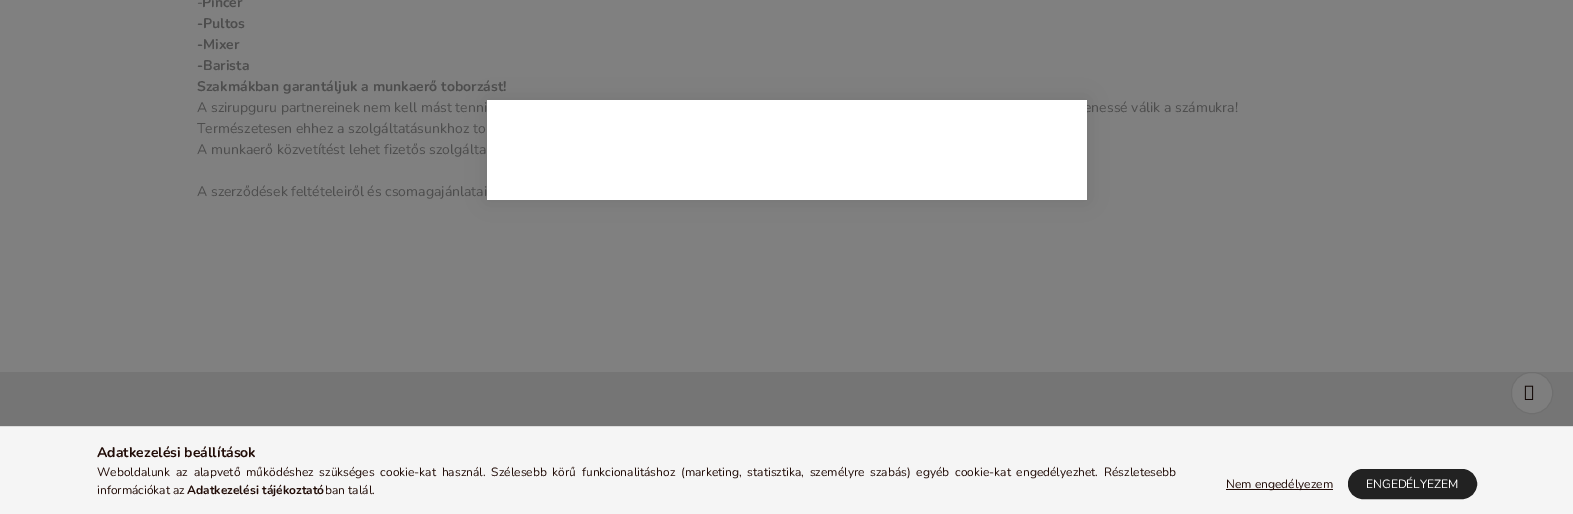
%!PS-Adobe-3.0
%%BoundingBox: 0 0 1573 514
%%LanguageLevel: 3
%%Pages: 1
%%EndComments
%%BeginProlog
/m { moveto } bind def
/f { fill } bind def
/S { stroke } bind def
/q { gsave } bind def
/Q { grestore } bind def
/fn { [ exch dup neg 0 0 3 -1 roll 0 0 ] selectfont } def
/tx { moveto show } def
/bx { rectfill } def
/al { dup .setfillconstantalpha .setstrokeconstantalpha } def
/rr { 5 dict begin { /r /h /w /y /x } { exch def } forall
  x r add y moveto x w add y 2 copy h add r arct x w add y h add x 1 index r arct
  x y h add x y r arct x y 2 copy exch w add exch r arct closepath end } def
/sh { 12 dict begin { /a /b /q /h /w /y /x } { exch def } forall gsave /was 0 def
  9 -2 -9 { dup b mul 4 div /e exch def 1 sub .425 mul 2.718 exch exp 1 add a .99 .min exch div /now exch def
    1 1 now sub 1 was sub div sub al /was now def
    w h .min e 2 mul add 0 gt { x e sub y e sub w e 2 mul add h e 2 mul add
      q e add b .6 mul add w h .min 2 div e add .min 0 .max rr fill } if } for grestore end } def
/im { 5 dict begin { /h /w /y /x /name } { exch def } forall
  gsave x y translate w h scale
  w h 8 [w 0 0 h 0 0] name (r) file false 3 colorimage grestore end } def
%%EndProlog
%%BeginSetup
<< /PageSize [1573 514] /PageUsesTransparency true >> setpagedevice
%%EndSetup
%%Page: 1 1
0 .pushpdf14devicefilter
0 514 translate 1 -1 scale
4 setmiterlimit
0.502 setgray
0 0 1573 514 bx
/Nunito-Regular 14 fn
0.302 setgray
(-) 197 7 tx
/Nunito-Bold 14 fn
(Pincér) 202 7 tx
(-Pultos) 197 28 tx
(-Mixer) 197 49 tx
(-Barista) 197 70 tx
(Szakmákban garantáljuk a munkaerő toborzást!) 197 91 tx
/Nunito-Regular 14 fn
(A szirupguru partnereinek nem kell mást tenni) 197 112 tx
(enessé válik a számukra!) 1084 112 tx
(Természetesen ehhez a szolgáltatásunkhoz to) 197 133 tx
(A munkaerő közvetítést lehet fizetős szolgálta) 197 154 tx
(A szerződések feltételeiről és csomagajánlatai) 197 196 tx
0.459 setgray
0 372 1573 54 bx
0 setgray
487 100 600 100 0 10 0.1 sh
1 setgray
487 100 600 100 bx
0.494 setgray
1511.5 372.5 41 41 19.5 rr q f Q
0.435 setgray
S
(image0.raw) 1524 385 10 15 im
0.961 setgray
0 427 1573 87 bx
0.867 setgray
0 426 1573 1 bx
/Nunito-Bold 14 fn
0.129 0.047 0.027 setrgbcolor
(Adatkezelési beállítások) 97 457 tx
/Nunito-Regular 12 fn
97 476 m 2.6 0 32 (Weboldalunk az alapvető működéshez szükséges cookie-kat használ. Szélesebb körű funkcionalitáshoz \(marketing, statisztika, személyre szabás\) egyéb cookie-kat engedélyezhet. Részletesebb) widthshow
(információkat az) 97 494 tx
/Nunito-Bold 12 fn
(Adatkezelési tájékoztató) 187 494 tx
/Nunito-Regular 12 fn
(ban talál.) 325 494 tx
1226 489 107 1 bx
(Nem engedélyezem) 1226 488 tx
0.133 setgray
1348.5 469.5 128 29 14.5 rr q f Q
S
1 setgray
(ENGEDÉLYEZEM) 1366 488 tx
.poppdf14devicefilter showpage
%%EOF
